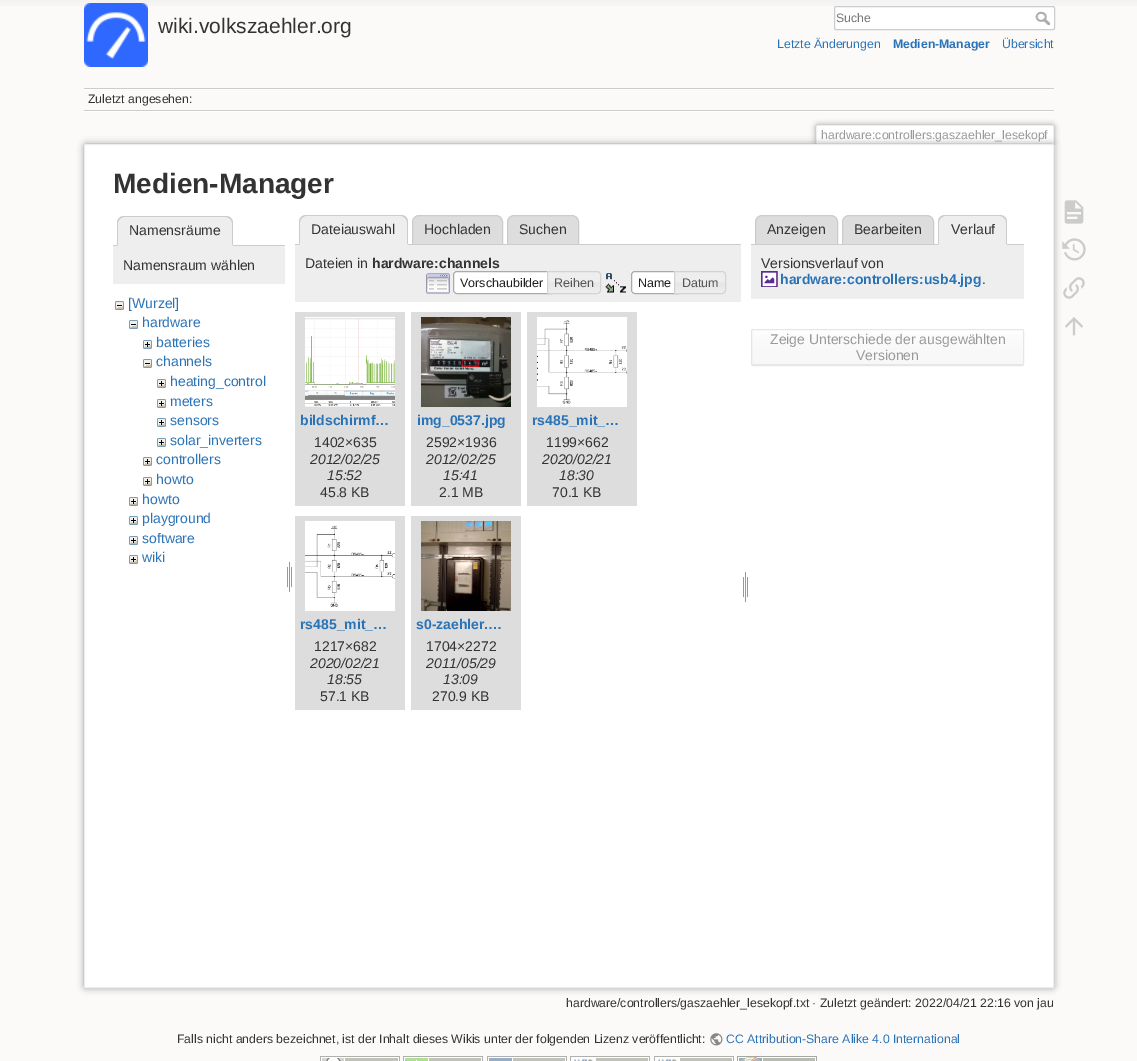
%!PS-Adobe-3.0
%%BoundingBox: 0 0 1137 1061
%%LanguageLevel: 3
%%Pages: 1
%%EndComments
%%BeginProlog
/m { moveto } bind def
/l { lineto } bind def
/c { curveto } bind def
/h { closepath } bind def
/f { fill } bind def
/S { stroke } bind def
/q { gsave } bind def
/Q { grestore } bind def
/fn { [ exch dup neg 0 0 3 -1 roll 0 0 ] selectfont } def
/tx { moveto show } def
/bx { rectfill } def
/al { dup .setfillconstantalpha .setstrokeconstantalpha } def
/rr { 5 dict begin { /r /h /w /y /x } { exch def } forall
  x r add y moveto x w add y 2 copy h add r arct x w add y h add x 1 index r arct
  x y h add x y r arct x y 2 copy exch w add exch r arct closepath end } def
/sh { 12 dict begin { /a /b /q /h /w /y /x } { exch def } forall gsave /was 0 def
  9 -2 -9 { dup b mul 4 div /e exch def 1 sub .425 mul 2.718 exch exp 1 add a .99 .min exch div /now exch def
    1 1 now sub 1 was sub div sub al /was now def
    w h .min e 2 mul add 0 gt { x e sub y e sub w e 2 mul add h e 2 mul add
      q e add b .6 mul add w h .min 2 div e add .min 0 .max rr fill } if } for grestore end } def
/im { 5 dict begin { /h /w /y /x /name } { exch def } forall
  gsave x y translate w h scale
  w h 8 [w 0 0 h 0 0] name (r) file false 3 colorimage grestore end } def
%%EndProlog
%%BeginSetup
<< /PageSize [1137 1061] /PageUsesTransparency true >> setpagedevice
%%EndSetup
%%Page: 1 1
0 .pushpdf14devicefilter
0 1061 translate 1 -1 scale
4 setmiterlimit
0.984 0.98 0.976 setrgbcolor
0 0 1137 1061 bx
(image0.raw) 0 0 1137 6 im
(image1.raw) 84 3 64 64 im
/LiberationSans-Regular 21 fn
0.2 setgray
(wiki.volkszaehler.org) 158 33 tx
1 setgray
834.5 6.5 220 23 1.5 rr q f Q
0.8 setgray
S
/LiberationSans-Regular 12.25 fn
0.459 setgray
(Suche) 836 22 tx
(image2.raw) 1035 11 15 14 im
0.169 0.451 0.718 setrgbcolor
(Letzte Änderungen) 777 48 tx
/LiberationSans-Bold 12.25 fn
(Medien-Manager) 893 48 tx
/LiberationSans-Regular 12.25 fn
(Übersicht) 1002 48 tx
0.8 setgray
84 88 970 1 bx
1 setgray
84 111 970 1 bx
84 89 970 1 bx
0.8 setgray
84 110 970 1 bx
0.2 setgray
(Zuletzt angesehen:) 88 103 tx
q
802 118 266 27 rectclip
0.6 setgray
816 125 238 20 2 3 1 sh
Q
1 setgray
818 126 m 1052 126 l 1052.5 126 1053 126.5 1053 127 c 1053 145 l 817 145 l 817 127 l 817 126.5 817.5 126 818 126 c h f
0.933 setgray
817 125 236 1 bx
1053 126 1 19 bx
816 126 1 19 bx
0.6 setgray
(hardware:controllers:gaszaehler_lesekopf) 821 139 tx
84 144 970 844 2 3.5 1 sh
1 setgray
84.5 144.5 969 843 1.5 rr q f Q
0.933 setgray
S
/LiberationSans-Bold 28 fn
0.2 setgray
(Medien-Manager) 113 193 tx
0.8 setgray
113 245 172 1 bx
0.933 setgray
124 216 m 226 216 l 230 216 233 219 233 223 c 233 246 l 117 246 l 117 223 l 117 219 120 216 124 216 c h f
0.8 setgray
124 216 m 122 216 120 217 119 218 c 120 219 l 123 217 l 227 217 l 230 219 l 231 218 l 230 217 228 216 226 216 c h f
233 246 m 233 223 l 233 221 232 219 231 218 c 230 219 l 231 220 232 221.5 232 223 c 232 245 l h f
0.933 setgray
233 246 m 232 245 l 118 245 l 117 246 l h f
0.8 setgray
117 246 m 118 245 l 118 223 l 118 221.5 119 220 120 219 c 119 218 l 118 219 117 221 117 223 c h f
/LiberationSans-Regular 14 fn
0.2 setgray
(Namensräume) 129 235 tx
0.933 setgray
113 246 172 38 bx
0.2 setgray
(Namensraum wählen) 123 270 tx
(image3.raw) 115 301 9 9 im
0.169 0.451 0.718 setrgbcolor
([Wurzel]) 128 308 tx
(image3.raw) 129 320 9 9 im
(hardware) 142 327 tx
(image4.raw) 143 340 9 9 im
(batteries) 156 347 tx
(image3.raw) 143 359 9 9 im
(channels) 156 366 tx
(image4.raw) 157 379 9 9 im
(heating_control) 170 386 tx
(image4.raw) 157 399 9 9 im
(meters) 170 406 tx
(image4.raw) 157 418 9 9 im
(sensors) 170 425 tx
(image4.raw) 157 438 9 9 im
(solar_inverters) 170 445 tx
(image4.raw) 143 457 9 9 im
(controllers) 156 464 tx
(image4.raw) 143 477 9 9 im
(howto) 156 484 tx
(image4.raw) 129 497 9 9 im
(howto) 142 504 tx
(image4.raw) 129 516 9 9 im
(playground) 142 523 tx
(image4.raw) 129 536 9 9 im
(software) 142 543 tx
(image4.raw) 129 555 9 9 im
(wiki) 142 562 tx
(image5.raw) 287 561 5 31 im
0.867 setgray
419 215.5 m 496 215.5 l 499.5 215.5 502.5 218.5 502.5 222 c 502.5 244.5 l 412.5 244.5 l 412.5 222 l 412.5 218.5 415.5 215.5 419 215.5 c h q f Q
0.8 setgray
S
0.867 setgray
514 215.5 m 572 215.5 l 575.5 215.5 578.5 218.5 578.5 222 c 578.5 244.5 l 507.5 244.5 l 507.5 222 l 507.5 218.5 510.5 215.5 514 215.5 c h q f Q
0.8 setgray
S
295 244 446 1 bx
0.933 setgray
306 215 m 401 215 l 405 215 408 218 408 222 c 408 245 l 299 245 l 299 222 l 299 218 302 215 306 215 c h f
0.8 setgray
306 215 m 304 215 302 216 301 217 c 302 218 l 305 216 l 402 216 l 405 218 l 406 217 l 405 216 403 215 401 215 c h f
408 245 m 408 222 l 408 220 407 218 406 217 c 405 218 l 406 219 407 220.5 407 222 c 407 244 l h f
0.933 setgray
408 245 m 407 244 l 300 244 l 299 245 l h f
0.8 setgray
299 245 m 300 244 l 300 222 l 300 220.5 301 219 302 218 c 301 217 l 300 218 299 220 299 222 c h f
0.2 setgray
(Dateiauswahl) 311 234 tx
(Hochladen) 424 234 tx
(Suchen) 519 234 tx
0.933 setgray
295 245 446 57 bx
0.2 setgray
(Dateien in) 305 268 tx
/LiberationSans-Bold 14 fn
(hardware:channels) 372 268 tx
(image6.raw) 426 273 24 21 im
1 setgray
453 271 94 23 bx
0.667 setgray
457 271.5 m 551.5 271.5 l 551.5 293.5 l 457 293.5 l 455 293.5 453.5 292 453.5 290 c 453.5 275 l 453.5 273 455 271.5 457 271.5 c h S
/LiberationSans-Regular 12.5 fn
0.129 setgray
(Vorschaubilder) 460 287 tx
(image7.raw) 548 271 53 23 im
0.827 setgray
547.5 271.5 m 597 271.5 l 599 271.5 600.5 273 600.5 275 c 600.5 290 l 600.5 292 599 293.5 597 293.5 c 547.5 293.5 l h S
0.333 setgray
(Reihen) 554 287 tx
(image8.raw) 605 273 21 20 im
1 setgray
631 271 43 23 bx
0.667 setgray
635 271.5 m 678.5 271.5 l 678.5 293.5 l 635 293.5 l 633 293.5 631.5 292 631.5 290 c 631.5 275 l 631.5 273 633 271.5 635 271.5 c h S
0.129 setgray
(Name) 638 287 tx
(image9.raw) 675 271 51 23 im
0.827 setgray
674.5 271.5 m 722 271.5 l 724 271.5 725.5 273 725.5 275 c 725.5 290 l 725.5 292 724 293.5 722 293.5 c 674.5 293.5 l h S
0.333 setgray
(Datum) 682 287 tx
0.867 setgray
295 312 110 194 bx
(image10.raw) 305 317 90 90 im
/LiberationSans-Bold 14 fn
0.169 0.451 0.718 setrgbcolor
(bildschirmf…) 300 425 tx
/LiberationSans-Regular 14 fn
0.2 setgray
(1402×635) 314 447 tx
/LiberationSans-Italic 14 fn
(2012/02/25) 310 464 tx
(15:52) 327 480 tx
/LiberationSans-Regular 14 fn
(45.8 KB) 320 497 tx
0.867 setgray
411 312 110 194 bx
(image11.raw) 421 317 90 90 im
/LiberationSans-Bold 14 fn
0.169 0.451 0.718 setrgbcolor
(img_0537.jpg) 417 425 tx
/LiberationSans-Regular 14 fn
0.2 setgray
(2592×1936) 426 447 tx
/LiberationSans-Italic 14 fn
(2012/02/25) 426 464 tx
(15:41) 443 480 tx
/LiberationSans-Regular 14 fn
(2.1 MB) 439 497 tx
0.867 setgray
527 312 110 194 bx
(image12.raw) 537 317 90 90 im
/LiberationSans-Bold 14 fn
0.169 0.451 0.718 setrgbcolor
(rs485_mit_…) 532 425 tx
/LiberationSans-Regular 14 fn
0.2 setgray
(1199×662) 546 447 tx
/LiberationSans-Italic 14 fn
(2020/02/21) 542 464 tx
(18:30) 559 480 tx
/LiberationSans-Regular 14 fn
(70.1 KB) 552 497 tx
0.867 setgray
295 516 110 194 bx
(image13.raw) 305 521 90 90 im
/LiberationSans-Bold 14 fn
0.169 0.451 0.718 setrgbcolor
(rs485_mit_…) 300 629 tx
/LiberationSans-Regular 14 fn
0.2 setgray
(1217×682) 314 651 tx
/LiberationSans-Italic 14 fn
(2020/02/21) 310 668 tx
(18:55) 327 684 tx
/LiberationSans-Regular 14 fn
(57.1 KB) 320 701 tx
0.867 setgray
411 516 110 194 bx
(image14.raw) 421 521 90 90 im
/LiberationSans-Bold 14 fn
0.169 0.451 0.718 setrgbcolor
(s0-zaehler.…) 416 629 tx
/LiberationSans-Regular 14 fn
0.2 setgray
(1704×2272) 426 651 tx
/LiberationSans-Italic 14 fn
(2011/05/29) 426 668 tx
(13:09) 443 684 tx
/LiberationSans-Regular 14 fn
(270.9 KB) 432 701 tx
(image5.raw) 743 571 5 31 im
0.867 setgray
762 215.5 m 831 215.5 l 834.5 215.5 837.5 218.5 837.5 222 c 837.5 244.5 l 755.5 244.5 l 755.5 222 l 755.5 218.5 758.5 215.5 762 215.5 c h q f Q
0.8 setgray
S
0.2 setgray
(Anzeigen) 767 234 tx
0.867 setgray
849 215.5 m 927 215.5 l 930.5 215.5 933.5 218.5 933.5 222 c 933.5 244.5 l 842.5 244.5 l 842.5 222 l 842.5 218.5 845.5 215.5 849 215.5 c h q f Q
0.8 setgray
S
0.2 setgray
(Bearbeiten) 854 234 tx
0.8 setgray
751 244 273 1 bx
0.933 setgray
945 215 m 1000 215 l 1004 215 1007 218 1007 222 c 1007 245 l 938 245 l 938 222 l 938 218 941 215 945 215 c h f
0.8 setgray
945 215 m 943 215 941 216 940 217 c 941 218 l 942 217 944 216 945 216 c 1000 216 l 1002 216 1003 217 1004 218 c 1005 217 l 1004 216 1002 215 1000 215 c h f
1007 245 m 1007 222 l 1007 220 1006 218 1005 217 c 1004 218 l 1005 219 1006 220.5 1006 222 c 1006 244 l h f
0.933 setgray
1007 245 m 1006 244 l 939 244 l 938 245 l h f
0.8 setgray
938 245 m 939 244 l 939 222 l 939 220.5 940 219 941 218 c 940 217 l 939 218 938 220 938 222 c h f
0.2 setgray
(Verlauf) 951 234 tx
0.933 setgray
751 245 273 54 bx
0.2 setgray
(Versionsverlauf von) 761 268 tx
(image15.raw) 761 271 17 16 im
/LiberationSans-Bold 14 fn
0.169 0.451 0.718 setrgbcolor
(hardware:controllers:usb4.jpg) 780 284 tx
/LiberationSans-Regular 14 fn
0.2 setgray
(.) 982 284 tx
q
751 329 273 37 2 rr clip newpath
q 751 330 m 1024 330 l 1024 365 l 751 365 l h clip newpath
<< /ShadingType 2 /ColorSpace /DeviceRGB /Coords [888 330 888 365] /Extend [true true] /Function << /FunctionType 3 /Domain [0 1] /Functions [<< /FunctionType 2 /Domain [0 1] /C0 [1 1 1] /C1 [0.98 0.98 0.98] /N 1 >> << /FunctionType 2 /Domain [0 1] /C0 [0.98 0.98 0.98] /C1 [0.969 0.969 0.969] /N 1 >> << /FunctionType 2 /Domain [0 1] /C0 [0.902 0.902 0.902] /C1 [0.902 0.902 0.902] /N 1 >>] /Bounds [0.3 0.99] /Encode [0 1 0 1 0 1] >> >> shfill Q
Q
0.902 setgray
751.5 329.5 272 36 1.5 rr S
0.6 setgray
(Zeige Unterschiede der ausgewählten) 770 344 tx
(Versionen) 856 360 tx
/LiberationSans-Regular 12.25 fn
0.2 setgray
(hardware/controllers/gaszaehler_lesekopf.txt · Zuletzt geändert: 2022/04/21 22:16 von jau) 566 1007 tx
(image16.raw) 1064 200 20 24 im
(image17.raw) 1062 238 24 23 im
(image18.raw) 1063 277 22 22 im
(image19.raw) 1065 317 18 19 im
(Falls nicht anders bezeichnet, ist der Inhalt dieses Wikis unter der folgenden Lizenz veröffentlicht:) 177 1043 tx
(image20.raw) 710 1033 13 13 im
0.169 0.451 0.718 setrgbcolor
(CC Attribution-Share Alike 4.0 International) 726 1043 tx
(image21.raw) 320 1056 80 5 im
(image22.raw) 403 1056 80 5 im
(image23.raw) 487 1056 80 5 im
(image24.raw) 570 1056 80 5 im
(image24.raw) 654 1056 80 5 im
(image25.raw) 737 1056 80 5 im
.poppdf14devicefilter showpage
%%EOF
